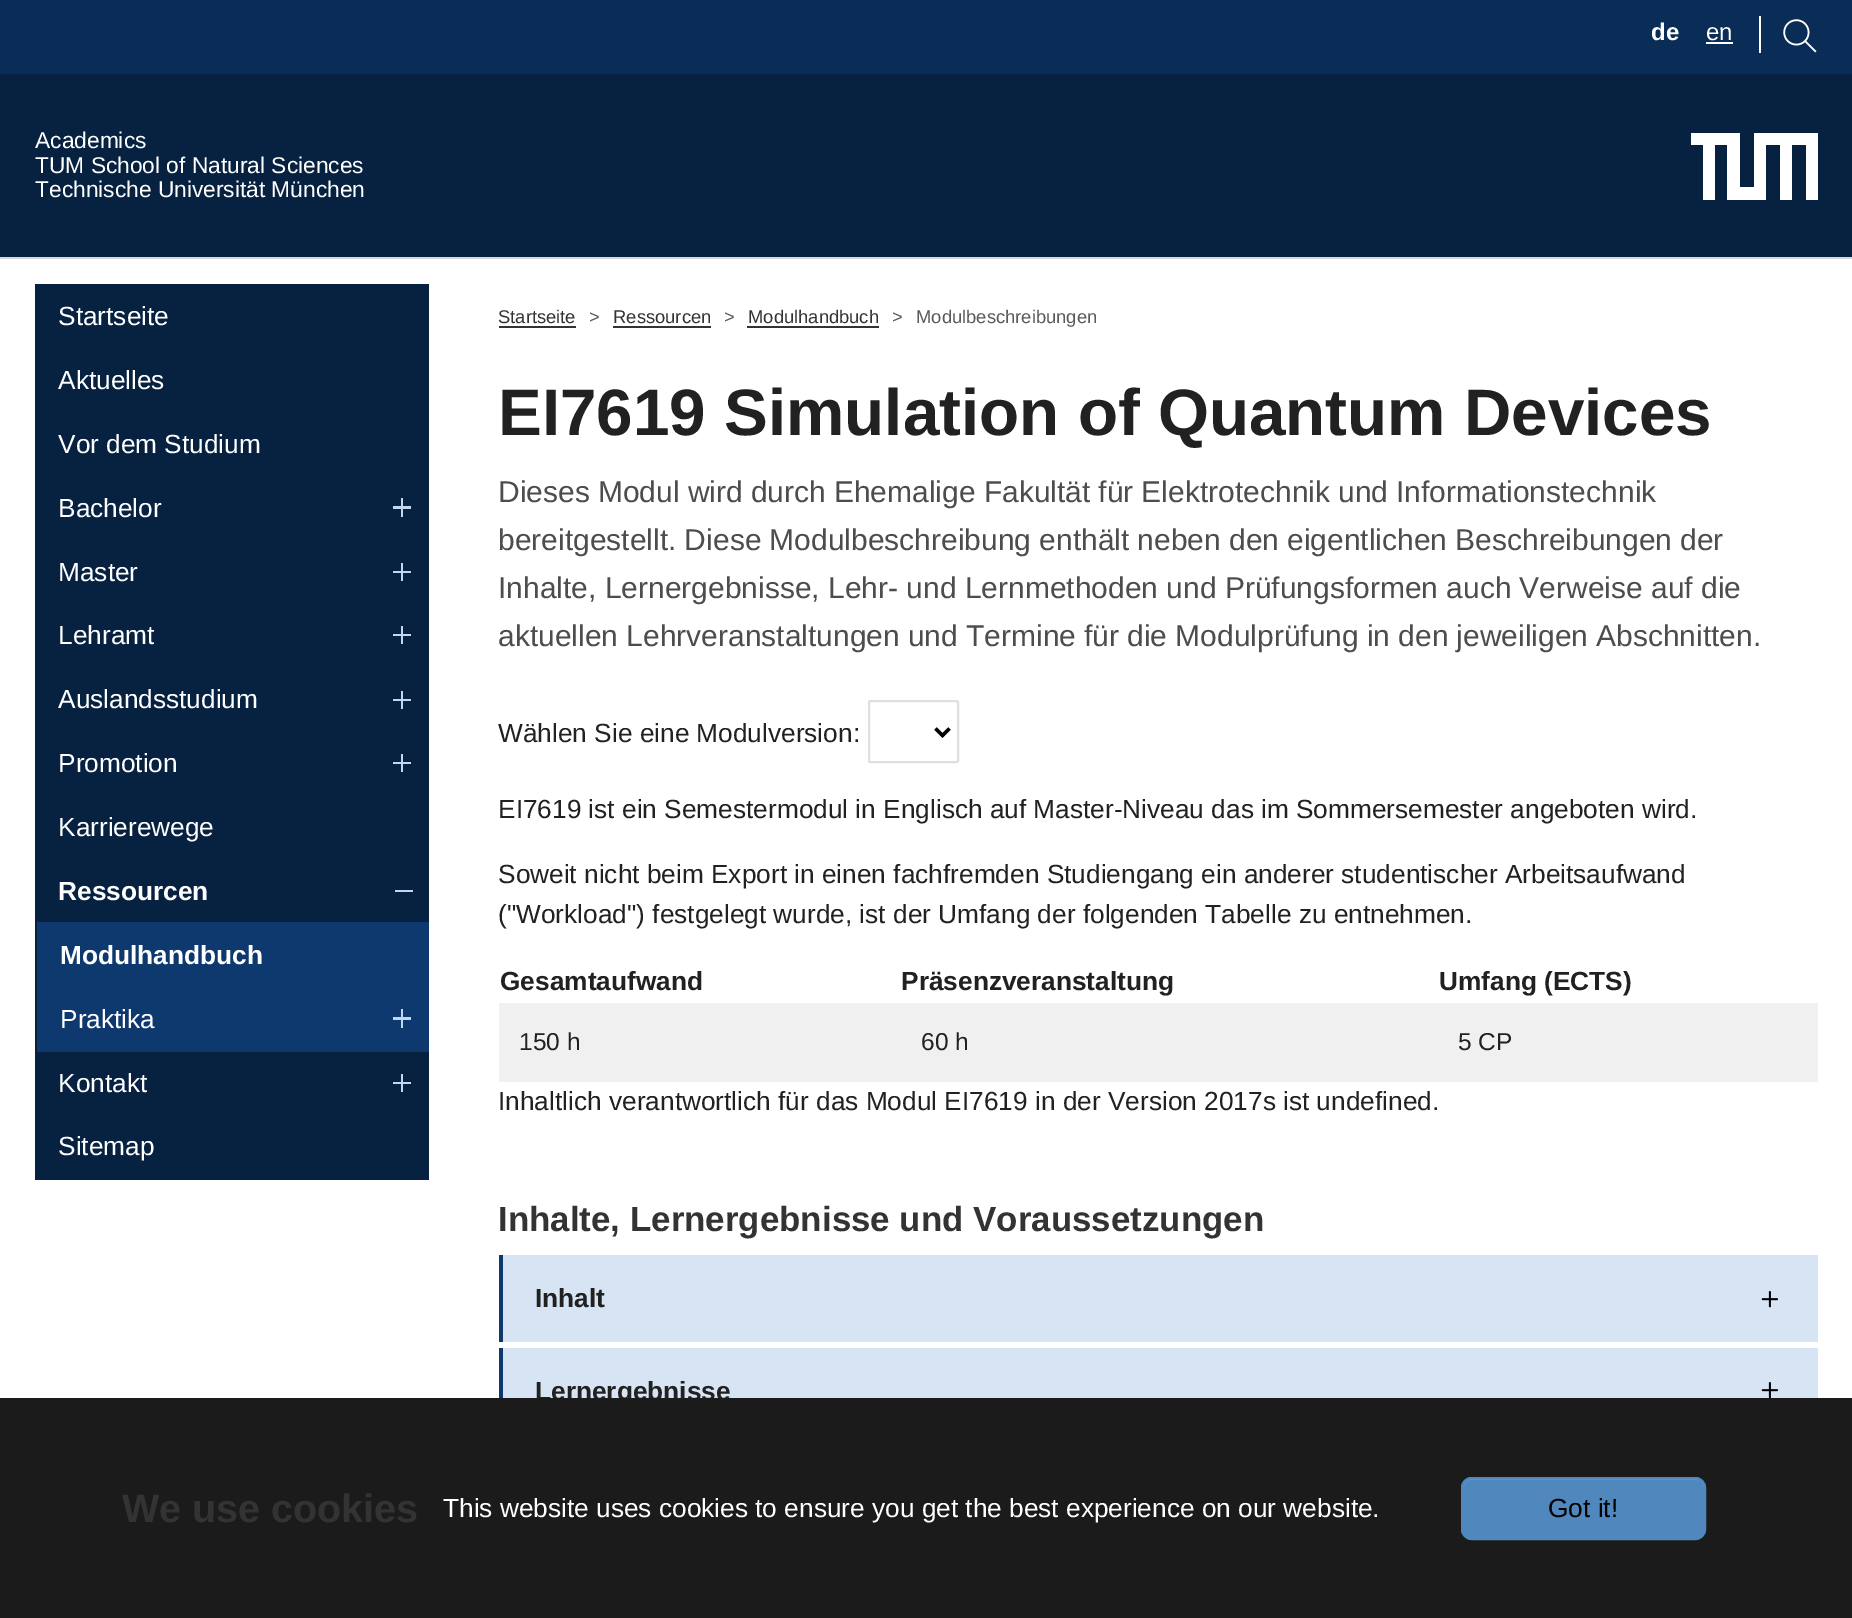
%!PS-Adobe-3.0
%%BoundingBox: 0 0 1852 1618
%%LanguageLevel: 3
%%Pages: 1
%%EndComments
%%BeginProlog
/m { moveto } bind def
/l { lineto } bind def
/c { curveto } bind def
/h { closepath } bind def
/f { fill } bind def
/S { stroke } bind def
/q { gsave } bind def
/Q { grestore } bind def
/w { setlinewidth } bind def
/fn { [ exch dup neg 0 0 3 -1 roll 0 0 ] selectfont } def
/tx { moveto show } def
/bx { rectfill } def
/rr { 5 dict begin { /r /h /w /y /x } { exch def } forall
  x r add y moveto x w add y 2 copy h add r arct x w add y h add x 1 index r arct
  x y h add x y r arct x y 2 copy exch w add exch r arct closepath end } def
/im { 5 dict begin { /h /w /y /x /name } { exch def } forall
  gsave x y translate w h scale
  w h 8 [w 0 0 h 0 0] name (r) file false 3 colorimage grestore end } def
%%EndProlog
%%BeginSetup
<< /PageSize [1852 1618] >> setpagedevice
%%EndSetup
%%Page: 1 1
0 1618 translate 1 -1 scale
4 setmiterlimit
1 setgray
0 0 1852 1618 bx
0.039 0.176 0.341 setrgbcolor
0 0 1852 74 bx
/LiberationSans-Bold 24 fn
1 setgray
(de) 1651 40 tx
/LiberationSans-Regular 24 fn
(en) 1706 40 tx
1706 42 27 2 bx
1759 16 2 37 bx
(image0.raw) 1783 19 34 34 im
0.851 setgray
0 257 1852 2 bx
0.027 0.129 0.251 setrgbcolor
0 74 1852 183 bx
/LiberationSans-Regular 22.75 fn
1 setgray
(Academics) 35 148 tx
(TUM School of Natural Sciences) 35 173 tx
(Technische Universität München) 35 197 tx
q
1691 133 127 67 rectclip
1740 133 m 1740 187 l 1754 187 l 1754 133 l 1818 133 l 1818 200 l 1806 200 l 1806 145 l 1792 145 l 1792 200 l 1780 200 l 1780 145 l 1766 145 l 1766 200 l 1727 200 l 1727 145 l 1715 145 l 1715 200 l 1703 200 l 1703 145 l 1690 145 l 1690 133 l h f
Q
0.027 0.129 0.251 setrgbcolor
35 284 394 896 bx
/LiberationSans-Regular 26.25 fn
1 setgray
(Startseite) 58 325 tx
(Aktuelles) 58 389 tx
(Vor dem Studium) 58 453 tx
(Bachelor) 58 517 tx
0.761 0.843 0.937 setrgbcolor
393 506 18 3 bx
401 498 2 19 bx
1 setgray
(Master) 58 581 tx
0.761 0.843 0.937 setrgbcolor
393 571 18 2 bx
401 563 2 18 bx
1 setgray
(Lehramt) 58 644 tx
0.761 0.843 0.937 setrgbcolor
393 634 18 2 bx
401 626 2 18 bx
1 setgray
(Auslandsstudium) 58 708 tx
0.761 0.843 0.937 setrgbcolor
393 699 18 2 bx
401 691 2 18 bx
1 setgray
(Promotion) 58 772 tx
0.761 0.843 0.937 setrgbcolor
393 762 18 2 bx
401 754 2 18 bx
1 setgray
(Karrierewege) 58 836 tx
/LiberationSans-Bold 26.25 fn
(Ressourcen) 58 900 tx
0.761 0.843 0.937 setrgbcolor
395 890 18 2 bx
0.055 0.224 0.431 setrgbcolor
37 922 392 130 bx
1 setgray
(Modulhandbuch) 60 964 tx
/LiberationSans-Regular 26.25 fn
(Praktika) 60 1028 tx
0.761 0.843 0.937 setrgbcolor
393 1017 18 3 bx
401 1009 2 19 bx
1 setgray
(Kontakt) 58 1092 tx
0.761 0.843 0.937 setrgbcolor
393 1082 18 2 bx
401 1074 2 18 bx
1 setgray
(Sitemap) 58 1155 tx
/LiberationSans-Regular 18.4 fn
0.2 setgray
(Startseite) 498 323 tx
499 326 77 2 bx
0.349 setgray
(>) 589 323 tx
0.2 setgray
(Ressourcen) 613 323 tx
613 326 98 2 bx
0.349 setgray
(>) 724 323 tx
0.2 setgray
(Modulhandbuch) 748 323 tx
747 326 132 2 bx
0.349 setgray
(>) 892 323 tx
(Modulbeschreibungen) 916 323 tx
/LiberationSans-Bold 65.6 fn
0.129 setgray
(EI7619 Simulation of Quantum Devices) 498 435 tx
/LiberationSans-Regular 30 fn
0.302 setgray
498 502 m -0.25 0 32 (Dieses Modul wird durch Ehemalige Fakultät für Elektrotechnik und Informationstechnik) widthshow
498 550 m -0.25 0 32 (bereitgestellt. Diese Modulbeschreibung enthält neben den eigentlichen Beschreibungen der) widthshow
498 598 m -0.1 0 32 (Inhalte, Lernergebnisse, Lehr- und Lernmethoden und Prüfungsformen auch Verweise auf die) widthshow
498 646 m -0.25 0 32 (aktuellen Lehrveranstaltungen und Termine für die Modulprüfung in den jeweiligen Abschnitten.) widthshow
/LiberationSans-Regular 26.25 fn
0.129 setgray
(Wählen Sie eine Modulversion:) 498 742 tx
0.875 setgray
2 w
869 701 89 61 1.5 rr S
0 setgray
3.5 w
935.5 728.5 m 942.5 735.5 l 949.5 728.5 l S
0.129 setgray
(EI7619 ist ein Semestermodul in Englisch auf Master-Niveau das im Sommersemester angeboten wird.) 498 818 tx
(Soweit nicht beim Export in einen fachfremden Studiengang ein anderer studentischer Arbeitsaufwand) 498 883 tx
(\("Workload"\) festgelegt wurde, ist der Umfang der folgenden Tabelle zu entnehmen.) 498 923 tx
/LiberationSans-Bold 26.25 fn
(Gesamtaufwand) 500 990 tx
(Präsenzveranstaltung) 901 990 tx
(Umfang \(ECTS\)) 1439 990 tx
0.941 setgray
499 1003 1319 79 bx
/LiberationSans-Regular 24.5 fn
0.129 setgray
(150 h) 519 1050 tx
(60 h) 921 1050 tx
(5 CP) 1458 1050 tx
/LiberationSans-Regular 26.25 fn
(Inhaltlich verantwortlich für das Modul EI7619 in der Version 2017s ist undefined.) 498 1110 tx
/LiberationSans-Bold 34.9 fn
0.2 setgray
(Inhalte, Lernergebnisse und Voraussetzungen) 498 1231 tx
0.843 0.894 0.957 setrgbcolor
503 1255 1315 87 bx
0.055 0.224 0.431 setrgbcolor
499 1255 4 87 bx
/LiberationSans-Bold 26.25 fn
0.129 setgray
(Inhalt) 535 1307 tx
(image1.raw) 1761 1291 18 17 im
0.843 0.894 0.957 setrgbcolor
503 1348 1315 50 bx
0.055 0.224 0.431 setrgbcolor
499 1348 4 50 bx
0.129 setgray
(Lernergebnisse) 535 1400 tx
(image2.raw) 1761 1382 18 16 im
0.106 setgray
0 1398 1852 220 bx
/LiberationSans-Bold 39.5 fn
0.2 setgray
(We use cookies) 122 1522 tx
/LiberationSans-Regular 26.25 fn
1 setgray
(This website uses cookies to ensure you get the best experience on our website.) 443 1517 tx
0.314 0.529 0.737 setrgbcolor
1461 1477 245 63 11 rr f
0.416 0.6 0.776 setrgbcolor
1471 1480 m 1696 1480 l 1707 1480 1704 1497 1704 1503 c 1704 1533 l 1705 1532 1705 1531 1705 1529 c 1705 1488 l 1705 1483 1701 1479 1696 1479 c 1472 1479 l 1467 1479 1463 1483 1463 1488 c 1463 1489 l 1463 1484 1467 1480 1471 1480 c h f
0.314 0.529 0.737 setrgbcolor
2 w
1462 1478 243 61 10 rr S
0 setgray
(Got it!) 1548 1517 tx
showpage
%%EOF
